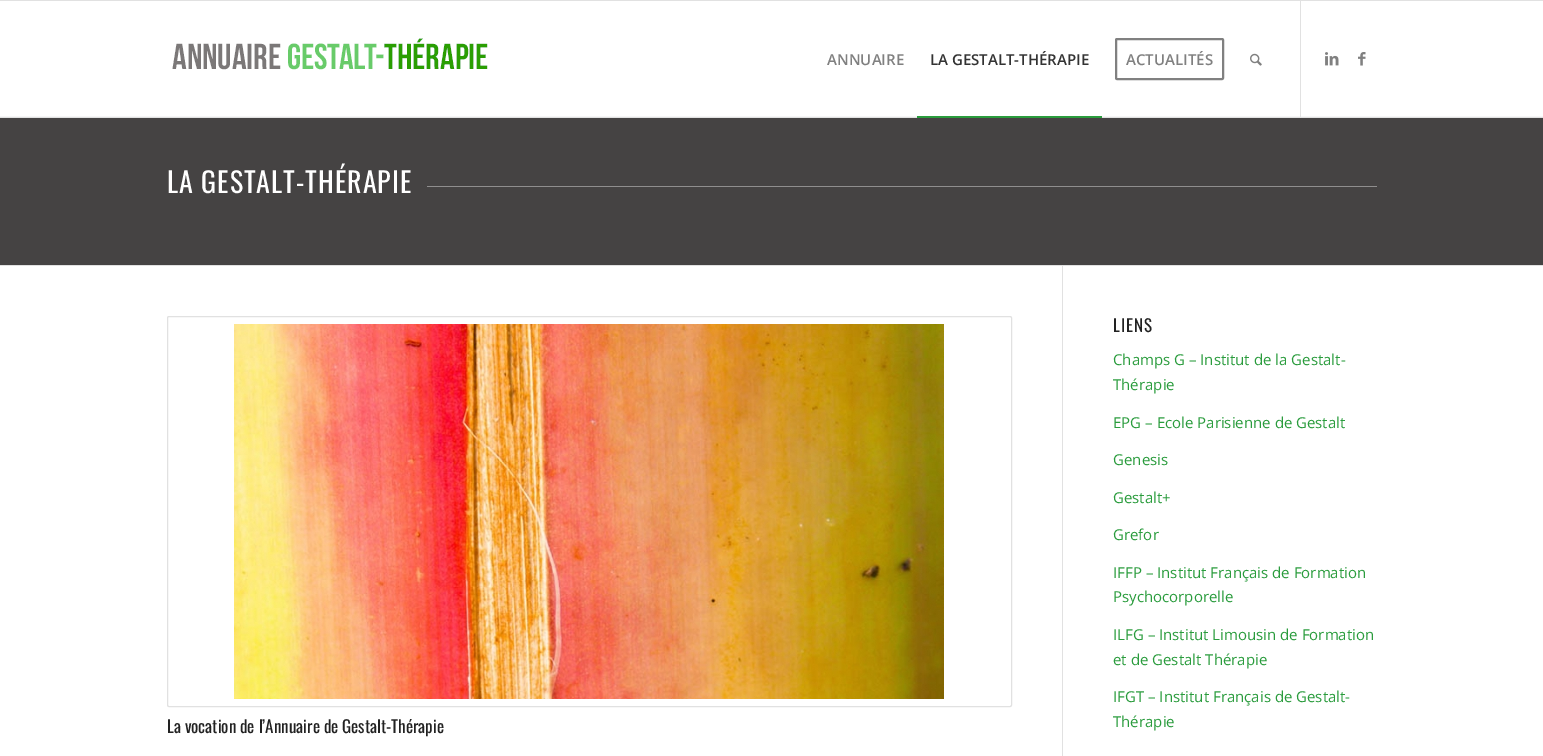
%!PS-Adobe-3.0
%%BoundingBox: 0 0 1543 756
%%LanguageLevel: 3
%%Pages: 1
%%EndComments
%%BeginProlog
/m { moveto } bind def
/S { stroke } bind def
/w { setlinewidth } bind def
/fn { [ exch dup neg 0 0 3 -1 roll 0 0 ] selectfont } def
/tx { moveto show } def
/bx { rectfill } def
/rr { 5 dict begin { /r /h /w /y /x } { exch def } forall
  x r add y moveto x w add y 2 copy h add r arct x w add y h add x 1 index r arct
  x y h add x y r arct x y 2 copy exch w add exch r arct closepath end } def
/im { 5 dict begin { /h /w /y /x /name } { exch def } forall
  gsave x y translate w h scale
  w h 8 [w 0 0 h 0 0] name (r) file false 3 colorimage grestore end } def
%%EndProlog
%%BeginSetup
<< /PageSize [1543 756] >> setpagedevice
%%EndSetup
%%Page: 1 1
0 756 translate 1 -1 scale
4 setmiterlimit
1 setgray
0 0 1543 756 bx
0.882 setgray
0 0 1543 1 bx
0 117 1543 1 bx
(image0.raw) 172 38 316 32 im
0.965 setgray
0 116 1543 1 bx
0.882 setgray
1300 1 1 116 bx
/OpenSans-SemiBold 15 fn
0.502 setgray
(ANNUAIRE) 827 65 tx
0.2 setgray
(LA GESTALT-THÉRAPIE) 930 65 tx
0.165 0.612 0.239 setrgbcolor
917 116 185 2 bx
0.502 setgray
2 w
1116 39 107 40 1 rr S
(ACTUALITÉS) 1126 65 tx
(image1.raw) 1250 53 12 13 im
(image2.raw) 1325 52 14 14 im
(image3.raw) 1358 52 8 14 im
0.271 0.263 0.263 setrgbcolor
0 118 1543 147 bx
/Oswald-Regular 28 fn
1 setgray
167 193 m 1 0 (LA GESTALT-THÉRAPIE) ashow
0.561 0.557 0.557 setrgbcolor
427 186 950 1 bx
0.882 setgray
0 265 1543 1 bx
1062 266 1 490 bx
1 w
167.5 316.5 844 390 1.5 rr S
(image4.raw) 234 324 710 375 im
/Oswald-Regular 17 fn
0.133 setgray
(La vocation de l’Annuaire de Gestalt-Thérapie) 167 733 tx
1113 332 m 1 0 (LIENS) ashow
/OpenSans-Regular 15 fn
0.165 0.612 0.239 setrgbcolor
(Champs G – Institut de la Gestalt-) 1113 365 tx
(Thérapie) 1113 390 tx
(EPG – Ecole Parisienne de Gestalt) 1113 428 tx
(Genesis) 1113 465 tx
(Gestalt+) 1113 503 tx
(Grefor) 1113 540 tx
(IFFP – Institut Français de Formation) 1113 578 tx
(Psychocorporelle) 1113 602 tx
(ILFG – Institut Limousin de Formation) 1113 640 tx
(et de Gestalt Thérapie) 1113 665 tx
(IFGT – Institut Français de Gestalt-) 1113 702 tx
(Thérapie) 1113 727 tx
showpage
%%EOF
